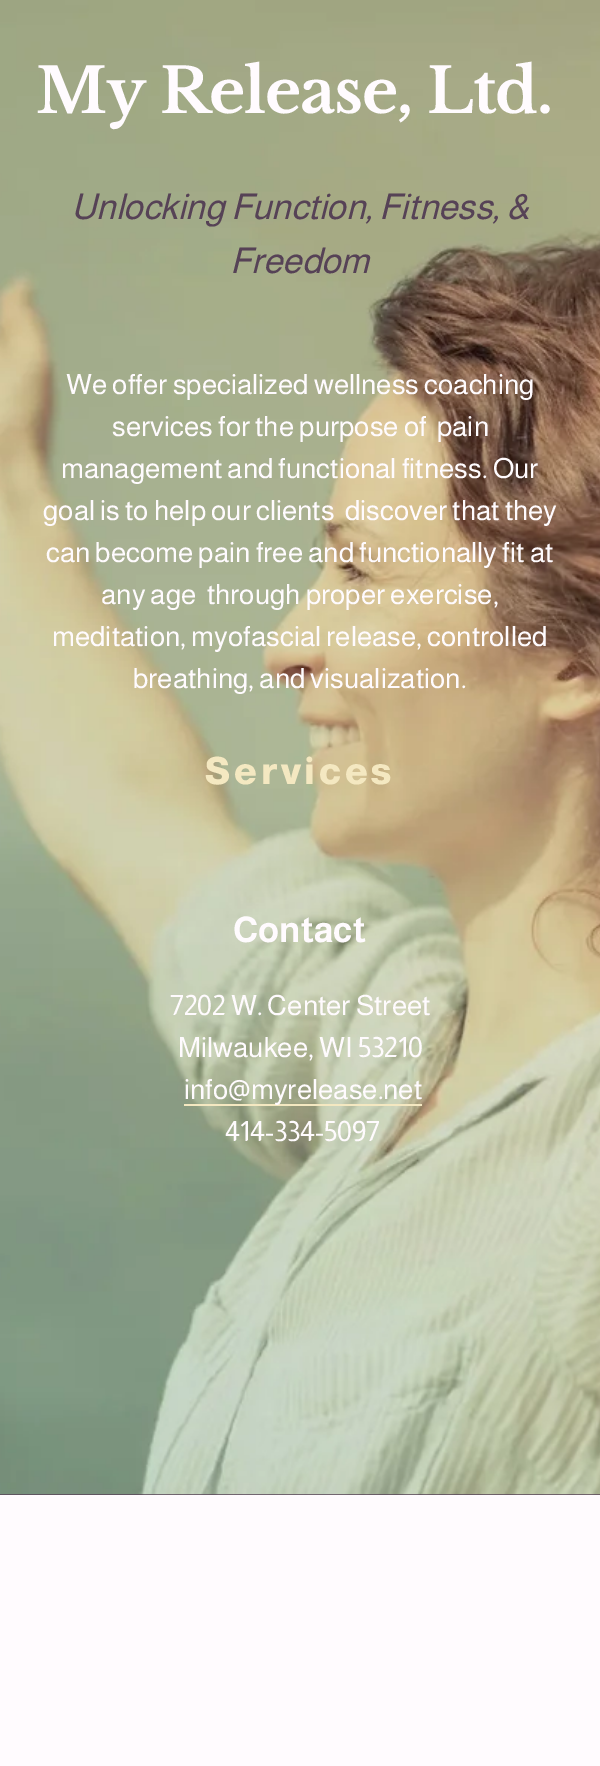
%!PS-Adobe-3.0
%%BoundingBox: 0 0 600 1766
%%LanguageLevel: 3
%%Pages: 1
%%EndComments
%%BeginProlog
/m { moveto } bind def
/fn { [ exch dup neg 0 0 3 -1 roll 0 0 ] selectfont } def
/tx { moveto show } def
/bx { rectfill } def
/im { 5 dict begin { /h /w /y /x /name } { exch def } forall
  gsave x y translate w h scale
  w h 8 [w 0 0 h 0 0] name (r) file false 3 colorimage grestore end } def
%%EndProlog
%%BeginSetup
<< /PageSize [600 1766] >> setpagedevice
%%EndSetup
%%Page: 1 1
0 1766 translate 1 -1 scale
4 setmiterlimit
1 0.984 0.996 setrgbcolor
0 0 600 1766 bx
0.337 0.259 0.337 setrgbcolor
0 1494 600 1 bx
(image0.raw) 0 0 600 1495 im
/LibreBaskerville-Bold 62 fn
1 0.984 0.996 setrgbcolor
36 113 m -1.25 0 (My Release, Ltd.) ashow
/Almarai-Italic 35.5 fn
0.337 0.259 0.337 setrgbcolor
(Unlocking Function, Fitness, &) 71 219 tx
(Freedom) 230 273 tx
/Almarai-Regular 28 fn
1 0.984 0.996 setrgbcolor
(We offer specialized wellness coaching) 66 394 tx
(services for the purpose of  pain) 112 436 tx
(management and functional fitness. Our) 61 478 tx
(goal is to help our clients  discover that they) 43 520 tx
(can become pain free and functionally fit at) 46 562 tx
(any age  through proper exercise,) 101 604 tx
(meditation, myofascial release, controlled) 52 646 tx
(breathing, and visualization.) 133 688 tx
/Almarai-ExtraBold 37.5 fn
0.957 0.91 0.757 setrgbcolor
205 784 m 3.75 0 (Services) ashow
/Almarai-Bold 35.5 fn
1 0.984 0.996 setrgbcolor
(Contact) 233 942 tx
/Almarai-Regular 28 fn
(7202 W. Center Street) 170 1015 tx
(Milwaukee, WI 53210) 178 1057 tx
0.957 0.91 0.757 setrgbcolor
184 1104 238 2 bx
1 0.984 0.996 setrgbcolor
(info@myrelease.net) 184 1099 tx
(414-334-5097) 225 1141 tx
showpage
%%EOF
